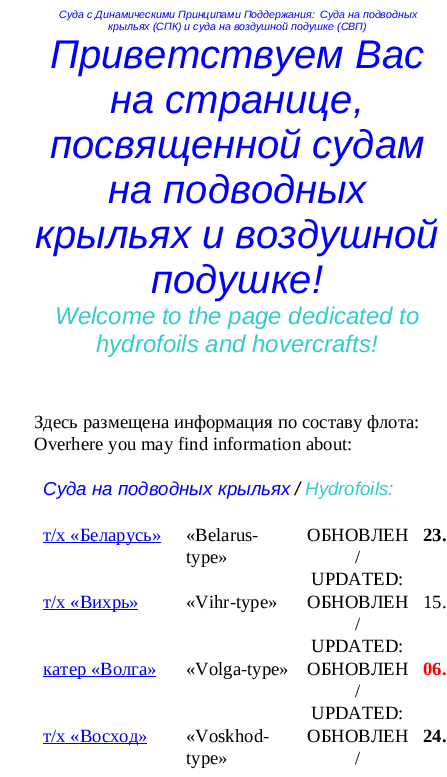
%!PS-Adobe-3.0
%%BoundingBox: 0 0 447 777
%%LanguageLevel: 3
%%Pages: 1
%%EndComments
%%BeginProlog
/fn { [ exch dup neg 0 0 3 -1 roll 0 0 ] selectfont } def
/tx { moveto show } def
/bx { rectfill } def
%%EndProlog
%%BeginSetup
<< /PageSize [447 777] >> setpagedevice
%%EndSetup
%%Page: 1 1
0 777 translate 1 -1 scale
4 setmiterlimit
1 setgray
0 0 447 777 bx
/LiberationSans-Italic 10.7 fn
0 0 1 setrgbcolor
(Суда с Динамическими Принципами Поддержания:) 59 18 tx
(Суда на подводных) 320 18 tx
(крыльях \(СПК\) и суда на воздушной подушке \(СВП\)) 108 30 tx
/LiberationSans-Italic 40 fn
(Приветствуем Вас) 50 68 tx
(на странице,) 110 113 tx
(посвященной судам) 50 158 tx
(на подводных) 108 203 tx
(крыльях и воздушной) 35 248 tx
(подушке!) 151 293 tx
/LiberationSans-Italic 24 fn
0.2 0.8 0.8 setrgbcolor
(Welcome to the page dedicated to) 55 324 tx
(hydrofoils and hovercrafts!) 96 352 tx
/LiberationSerif-Regular 18.7 fn
0 setgray
(Здесь размещена информация по составу флота:) 34 428 tx
(Overhere you may find information about:) 34 450 tx
/LiberationSans-Italic 18.7 fn
0 0 1 setrgbcolor
(Суда на подводных крыльях) 43 495 tx
0 setgray
(/) 295 495 tx
0.2 0.8 0.8 setrgbcolor
(Hydrofoils:) 305 495 tx
0 0 1 setrgbcolor
43 542 118 1 bx
/LiberationSerif-Regular 18.7 fn
(т/х «Беларусь») 43 541 tx
0 setgray
(«Belarus-) 186 541 tx
(type») 186 563 tx
(ОБНОВЛЕН) 307 541 tx
(/) 355 563 tx
(UPDATED:) 311 585 tx
/LiberationSerif-Bold 18.7 fn
(23.) 423 541 tx
0 0 1 setrgbcolor
43 609 95 1 bx
/LiberationSerif-Regular 18.7 fn
(т/х «Вихрь») 43 608 tx
0 setgray
(«Vihr-type») 186 608 tx
(ОБНОВЛЕН) 307 608 tx
(/) 355 630 tx
(UPDATED:) 311 652 tx
(15.) 423 608 tx
0 0 1 setrgbcolor
43 676 113 1 bx
(катер «Волга») 43 675 tx
0 setgray
(«Volga-type») 186 675 tx
(ОБНОВЛЕН) 307 675 tx
(/) 355 697 tx
(UPDATED:) 311 719 tx
/LiberationSerif-Bold 18.7 fn
1 0 0 setrgbcolor
(06.) 423 675 tx
0 0 1 setrgbcolor
43 743 104 1 bx
/LiberationSerif-Regular 18.7 fn
(т/х «Восход») 43 742 tx
0 setgray
(«Voskhod-) 186 742 tx
(type») 186 764 tx
(ОБНОВЛЕН) 307 742 tx
(/) 355 764 tx
/LiberationSerif-Bold 18.7 fn
(24.) 423 742 tx
showpage
%%EOF
